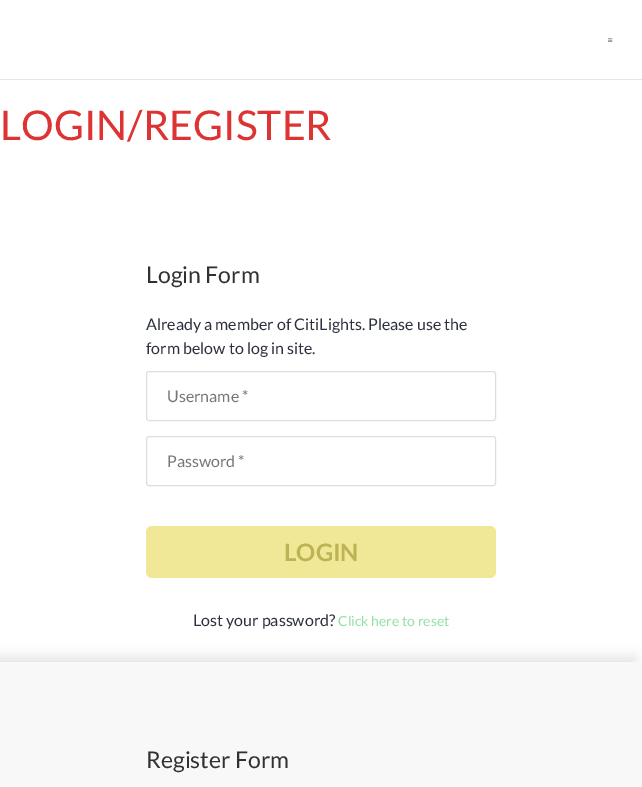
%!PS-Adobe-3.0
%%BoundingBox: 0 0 642 787
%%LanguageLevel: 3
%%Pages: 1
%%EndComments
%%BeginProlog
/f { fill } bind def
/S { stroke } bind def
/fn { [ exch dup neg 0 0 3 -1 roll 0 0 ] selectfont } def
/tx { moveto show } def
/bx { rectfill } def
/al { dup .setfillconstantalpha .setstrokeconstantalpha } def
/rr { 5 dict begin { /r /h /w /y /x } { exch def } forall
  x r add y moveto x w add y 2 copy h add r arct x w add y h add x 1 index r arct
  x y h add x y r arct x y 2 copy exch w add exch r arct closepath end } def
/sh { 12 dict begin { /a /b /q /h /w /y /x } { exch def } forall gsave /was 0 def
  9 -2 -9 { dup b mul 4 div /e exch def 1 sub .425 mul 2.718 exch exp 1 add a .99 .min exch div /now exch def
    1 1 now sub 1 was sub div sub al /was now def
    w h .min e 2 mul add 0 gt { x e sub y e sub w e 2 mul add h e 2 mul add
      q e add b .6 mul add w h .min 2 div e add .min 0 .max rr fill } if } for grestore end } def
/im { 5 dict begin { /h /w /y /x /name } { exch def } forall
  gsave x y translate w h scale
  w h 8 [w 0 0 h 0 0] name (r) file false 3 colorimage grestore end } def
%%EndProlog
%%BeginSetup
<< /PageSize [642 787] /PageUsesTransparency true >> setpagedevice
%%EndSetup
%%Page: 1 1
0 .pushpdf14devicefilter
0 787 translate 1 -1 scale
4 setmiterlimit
1 setgray
0 0 642 787 bx
0.898 setgray
0 79 642 1 bx
(image0.raw) 608 38 5 4 im
/Lato-Regular 41 fn
0.867 0.2 0.2 setrgbcolor
(LOGIN/REGISTER) 0 140 tx
/Lato-Regular 23 fn
0.192 setgray
(Login Form) 146 283 tx
/Lato-Regular 16 fn
0.176 0.192 0.247 setrgbcolor
(Already a member of CitiLights. Please use the) 146 330 tx
(form below to log in site.) 146 354 tx
0.871 setgray
146.5 371.5 349 49 2.5 rr S
0.467 setgray
(Username *) 167 402 tx
0.871 setgray
146.5 436.5 349 49 2.5 rr S
0.467 setgray
(Password *) 167 467 tx
0.941 0.906 0.592 setrgbcolor
146 526 350 52 6 rr f
/Lato-Bold 24 fn
0.741 0.698 0.329 setrgbcolor
(LOGIN) 284 561 tx
/Lato-Regular 16 fn
0.176 0.192 0.247 setrgbcolor
(Lost your password?) 193 626 tx
/Lato-Regular 14 fn
0.58 0.878 0.655 setrgbcolor
(Click here to reset) 338 626 tx
0 setgray
-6 656 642 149 0 6 0.1 sh
0.973 setgray
0 662 642 125 bx
/Lato-Regular 23 fn
0.192 setgray
(Register Form) 146 768 tx
.poppdf14devicefilter showpage
%%EOF
